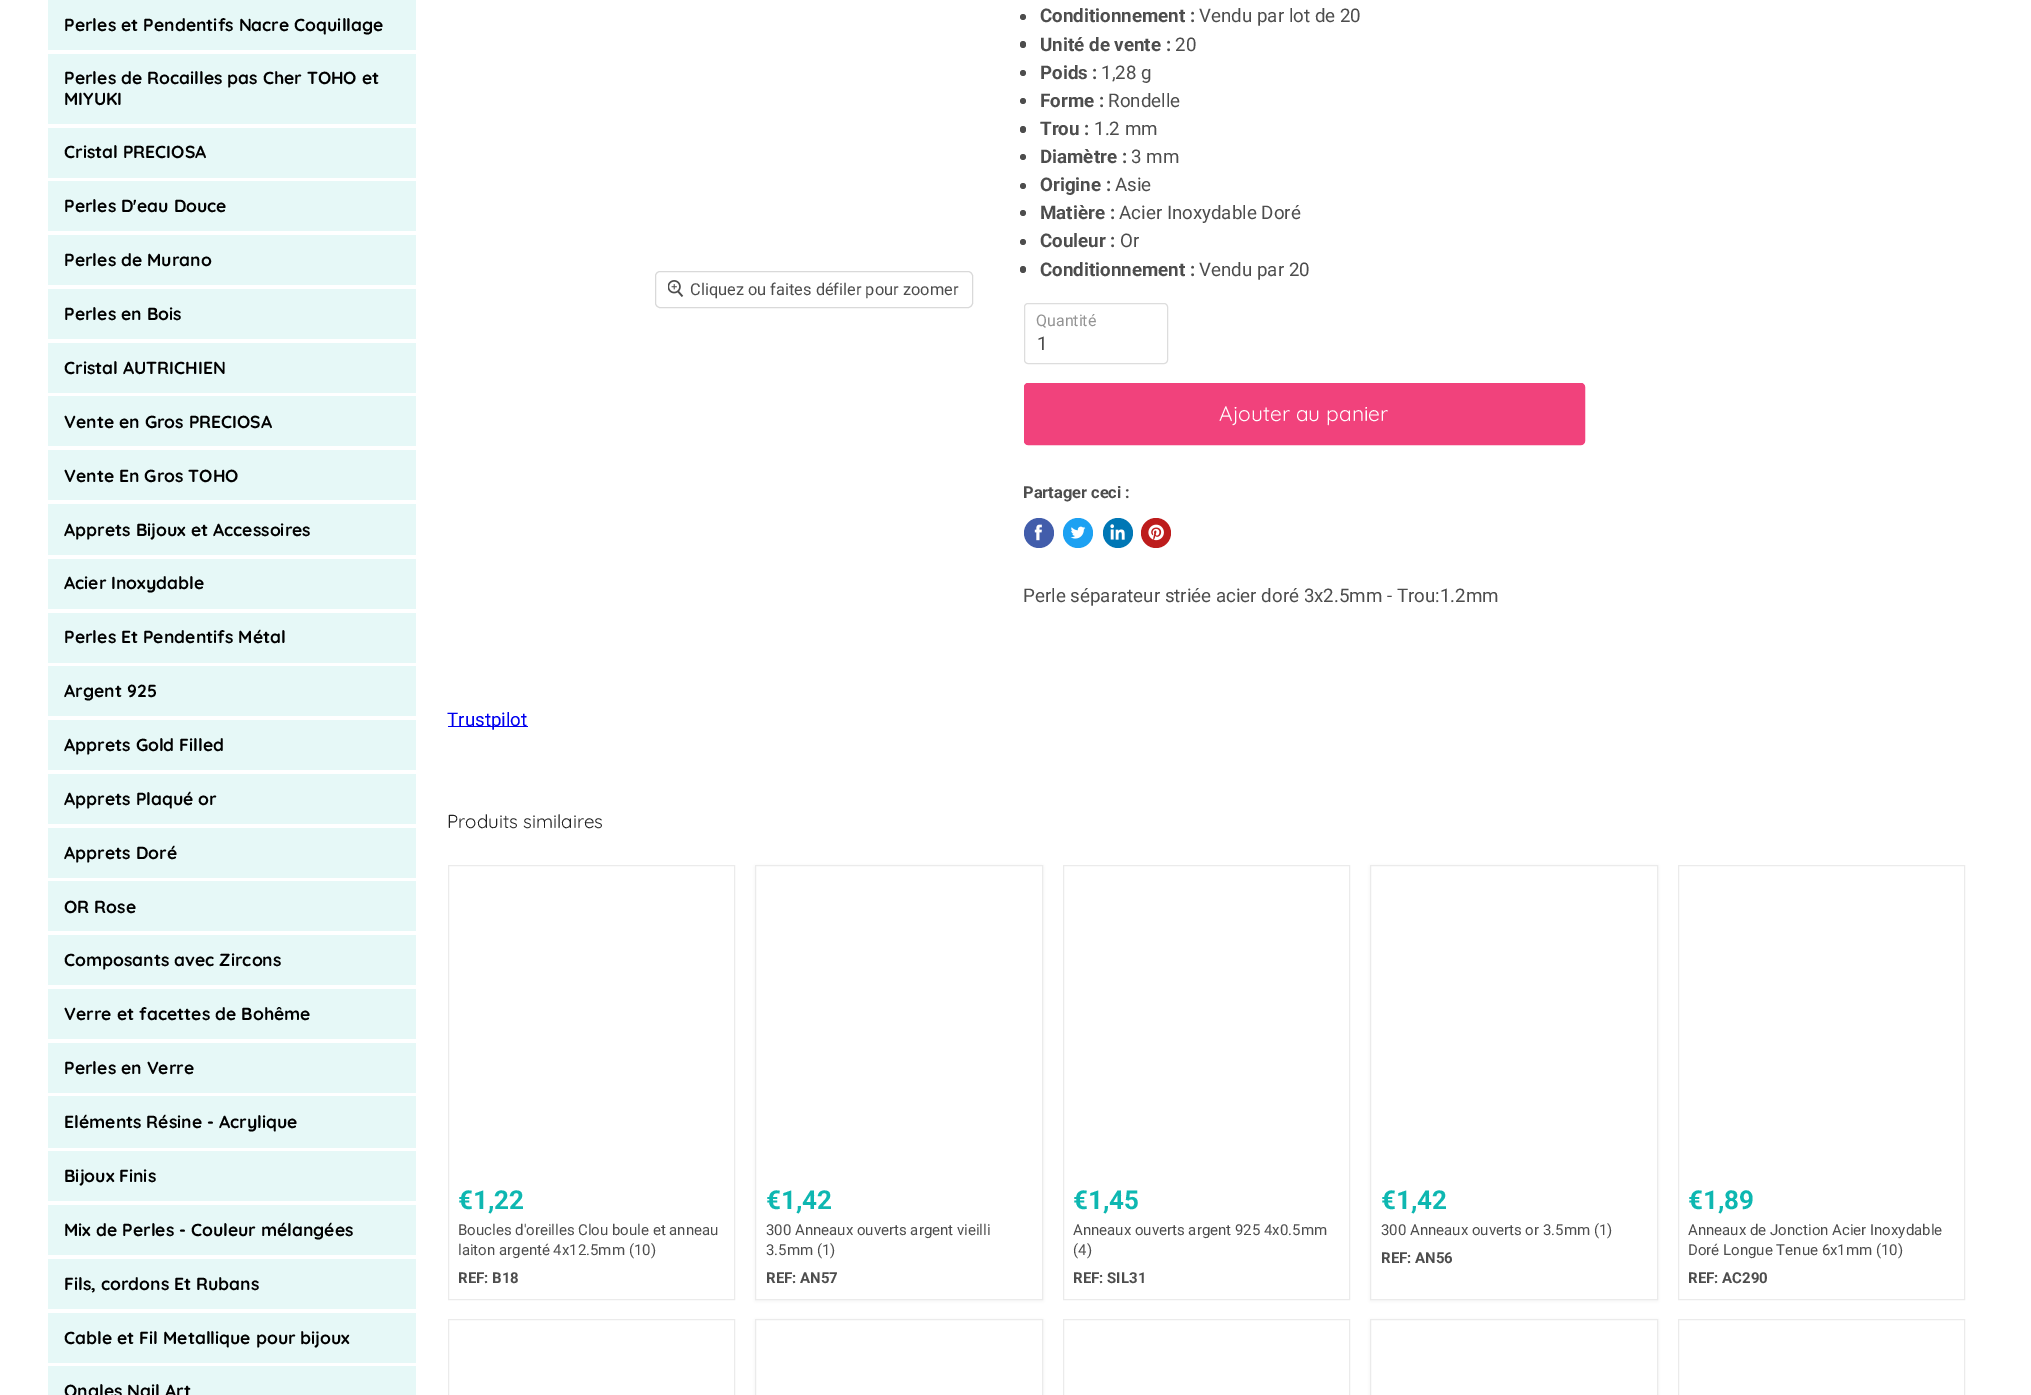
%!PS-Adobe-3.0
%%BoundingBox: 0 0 2031 1395
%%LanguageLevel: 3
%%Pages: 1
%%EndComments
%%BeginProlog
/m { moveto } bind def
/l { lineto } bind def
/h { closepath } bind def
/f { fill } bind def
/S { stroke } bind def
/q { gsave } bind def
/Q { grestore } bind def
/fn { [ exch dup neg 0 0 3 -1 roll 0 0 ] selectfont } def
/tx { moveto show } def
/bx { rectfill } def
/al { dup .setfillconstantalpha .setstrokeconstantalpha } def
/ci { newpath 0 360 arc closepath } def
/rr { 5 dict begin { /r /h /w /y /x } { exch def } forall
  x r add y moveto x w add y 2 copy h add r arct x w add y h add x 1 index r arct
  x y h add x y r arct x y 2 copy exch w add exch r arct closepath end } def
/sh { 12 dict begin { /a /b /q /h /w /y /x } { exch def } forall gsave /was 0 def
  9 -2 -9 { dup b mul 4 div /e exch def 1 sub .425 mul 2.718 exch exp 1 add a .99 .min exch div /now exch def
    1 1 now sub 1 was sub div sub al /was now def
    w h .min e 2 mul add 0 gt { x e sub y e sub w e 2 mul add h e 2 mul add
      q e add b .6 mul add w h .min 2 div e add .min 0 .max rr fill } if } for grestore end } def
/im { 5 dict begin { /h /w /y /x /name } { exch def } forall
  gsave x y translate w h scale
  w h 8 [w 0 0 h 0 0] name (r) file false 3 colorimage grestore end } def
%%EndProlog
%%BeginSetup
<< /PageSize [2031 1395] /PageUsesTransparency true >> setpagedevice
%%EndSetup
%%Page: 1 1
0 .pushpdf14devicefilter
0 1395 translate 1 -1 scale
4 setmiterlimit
1 setgray
0 0 2031 1395 bx
0.902 0.973 0.969 setrgbcolor
48 0 368 50 bx
/Quicksand-Bold 17.5 fn
0 setgray
(Perles et Pendentifs Nacre Coquillage) 64 31 tx
0.902 0.973 0.969 setrgbcolor
48 54 368 70 bx
0 setgray
(Perles de Rocailles pas Cher TOHO et) 64 84 tx
(MIYUKI) 64 105 tx
0.902 0.973 0.969 setrgbcolor
48 128 368 50 bx
0 setgray
(Cristal PRECIOSA) 64 158 tx
0.902 0.973 0.969 setrgbcolor
48 181 368 50 bx
0 setgray
(Perles D'eau Douce) 64 212 tx
0.902 0.973 0.969 setrgbcolor
48 235 368 50 bx
0 setgray
(Perles de Murano) 64 266 tx
0.902 0.973 0.969 setrgbcolor
48 289 368 50 bx
0 setgray
(Perles en Bois) 64 320 tx
0.902 0.973 0.969 setrgbcolor
48 343 368 50 bx
0 setgray
(Cristal AUTRICHIEN) 64 374 tx
0.902 0.973 0.969 setrgbcolor
48 396 368 50 bx
0 setgray
(Vente en Gros PRECIOSA) 64 428 tx
0.902 0.973 0.969 setrgbcolor
48 450 368 50 bx
0 setgray
(Vente En Gros TOHO) 64 482 tx
0.902 0.973 0.969 setrgbcolor
48 504 368 51 bx
0 setgray
(Apprets Bijoux et Accessoires) 64 536 tx
0.902 0.973 0.969 setrgbcolor
48 559 368 50 bx
0 setgray
(Acier Inoxydable) 64 589 tx
0.902 0.973 0.969 setrgbcolor
48 613 368 50 bx
0 setgray
(Perles Et Pendentifs Métal) 64 643 tx
0.902 0.973 0.969 setrgbcolor
48 666 368 50 bx
0 setgray
(Argent 925) 64 697 tx
0.902 0.973 0.969 setrgbcolor
48 720 368 50 bx
0 setgray
(Apprets Gold Filled) 64 751 tx
0.902 0.973 0.969 setrgbcolor
48 774 368 50 bx
0 setgray
(Apprets Plaqué or) 64 805 tx
0.902 0.973 0.969 setrgbcolor
48 828 368 50 bx
0 setgray
(Apprets Doré) 64 859 tx
0.902 0.973 0.969 setrgbcolor
48 881 368 50 bx
0 setgray
(OR Rose) 64 913 tx
0.902 0.973 0.969 setrgbcolor
48 935 368 50 bx
0 setgray
(Composants avec Zircons) 64 966 tx
0.902 0.973 0.969 setrgbcolor
48 989 368 50 bx
0 setgray
(Verre et facettes de Bohême) 64 1020 tx
0.902 0.973 0.969 setrgbcolor
48 1043 368 50 bx
0 setgray
(Perles en Verre) 64 1074 tx
0.902 0.973 0.969 setrgbcolor
48 1096 368 52 bx
0 setgray
(Eléments Résine - Acrylique) 64 1128 tx
0.902 0.973 0.969 setrgbcolor
48 1151 368 50 bx
0 setgray
(Bijoux Finis) 64 1182 tx
0.902 0.973 0.969 setrgbcolor
48 1205 368 50 bx
0 setgray
(Mix de Perles - Couleur mélangées) 64 1236 tx
0.902 0.973 0.969 setrgbcolor
48 1259 368 50 bx
0 setgray
(Fils, cordons Et Rubans) 64 1290 tx
0.902 0.973 0.969 setrgbcolor
48 1313 368 50 bx
0 setgray
(Cable et Fil Metallique pour bijoux) 64 1344 tx
0.902 0.973 0.969 setrgbcolor
48 1366 368 29 bx
0 setgray
(Ongles Nail Art) 64 1397 tx
0.851 setgray
655.5 271.5 317 36 4.5 rr S
(image0.raw) 668 280 16 17 im
/Roboto-Regular 16.4 fn
0.302 setgray
(Cliquez ou faites défiler pour zoomer) 690 295 tx
1023 17 3 ci f
/Roboto-Bold 18.75 fn
(Conditionnement :) 1040 22 tx
/Roboto-Regular 18.75 fn
(Vendu par lot de 20) 1199 22 tx
1020 41 6 7 3 rr f
/Roboto-Bold 18.75 fn
(Unité de vente :) 1040 51 tx
/Roboto-Regular 18.75 fn
(20) 1175 51 tx
1023 73 3 ci f
/Roboto-Bold 18.75 fn
(Poids :) 1040 79 tx
/Roboto-Regular 18.75 fn
(1,28 g) 1101 79 tx
1023 101 3 ci f
/Roboto-Bold 18.75 fn
(Forme :) 1040 107 tx
/Roboto-Regular 18.75 fn
(Rondelle) 1108 107 tx
1020 126 6 7 3 rr f
/Roboto-Bold 18.75 fn
(Trou :) 1040 135 tx
/Roboto-Regular 18.75 fn
(1.2 mm) 1094 135 tx
1023 157 3 ci f
/Roboto-Bold 18.75 fn
(Diamètre :) 1040 163 tx
/Roboto-Regular 18.75 fn
(3 mm) 1131 163 tx
1023 186 3 ci f
/Roboto-Bold 18.75 fn
(Origine :) 1040 191 tx
/Roboto-Regular 18.75 fn
(Asie) 1115 191 tx
1023 213 3 ci f
/Roboto-Bold 18.75 fn
(Matière :) 1040 219 tx
/Roboto-Regular 18.75 fn
(Acier Inoxydable Doré) 1119 219 tx
1023 242 3 ci f
/Roboto-Bold 18.75 fn
(Couleur :) 1040 247 tx
/Roboto-Regular 18.75 fn
(Or) 1120 247 tx
1020 266 6 7 3 rr f
/Roboto-Bold 18.75 fn
(Conditionnement :) 1040 276 tx
/Roboto-Regular 18.75 fn
(Vendu par 20) 1199 276 tx
0.867 setgray
1024.5 303.5 143 60 3.5 rr S
/Roboto-Regular 16 fn
0.58 setgray
(Quantité) 1036 326 tx
/Roboto-Regular 18.75 fn
0.302 setgray
(1) 1037 350 tx
0.945 0.259 0.486 setrgbcolor
1024.5 383.5 560 61 3.5 rr q f Q
S
/Quicksand-Regular 21 fn
1 setgray
(Ajouter au panier) 1219 421 tx
/Roboto-Bold 16.4 fn
0.302 setgray
(Partager ceci :) 1023 498 tx
0.259 0.365 0.671 setrgbcolor
1039 533 15 ci f
(image1.raw) 1034 524 8 17 im
0.114 0.631 0.949 setrgbcolor
1078 533 15 ci f
(image2.raw) 1070 526 16 13 im
0 0.467 0.71 setrgbcolor
1118 533 15 ci f
(image3.raw) 1110 524 15 16 im
0.741 0.11 0.11 setrgbcolor
1156 533 15 ci f
(image4.raw) 1148 524 16 17 im
/Roboto-Regular 18.75 fn
0.302 setgray
(Perle séparateur striée acier doré 3x2.5mm - Trou:1.2mm) 1023 602 tx
0 0 0.933 setrgbcolor
448 726 80 1 bx
(Trustpilot) 447 726 tx
/Quicksand-Regular 18.75 fn
0.133 setgray
(Produits similaires) 447 828 tx
0.922 setgray
448.5 865.5 286 434 rectstroke
/Roboto-Bold 26 fn
0.055 0.718 0.694 setrgbcolor
(€1,22) 458 1209 tx
/Roboto-Regular 15 fn
0.302 setgray
(Boucles d'oreilles Clou boule et anneau) 458 1235 tx
(laiton argenté 4x12.5mm \(10\)) 458 1255 tx
/Roboto-Bold 15 fn
(REF: B18) 458 1283 tx
0.502 setgray
755 866 288 435 0 2.5 0.11 sh
1 setgray
755.5 865.5 m 1042.5 865.5 l 1042.5 1299.5 l 755.5 1299.5 l h q f Q
0.922 setgray
S
/Roboto-Bold 26 fn
0.055 0.718 0.694 setrgbcolor
(€1,42) 766 1209 tx
/Roboto-Regular 15 fn
0.302 setgray
(300 Anneaux ouverts argent vieilli) 766 1235 tx
(3.5mm \(1\)) 766 1255 tx
/Roboto-Bold 15 fn
(REF: AN57) 766 1283 tx
0.922 setgray
1063.5 865.5 286 434 rectstroke
/Roboto-Bold 26 fn
0.055 0.718 0.694 setrgbcolor
(€1,45) 1073 1209 tx
/Roboto-Regular 15 fn
0.302 setgray
(Anneaux ouverts argent 925 4x0.5mm) 1073 1235 tx
(\(4\)) 1073 1255 tx
/Roboto-Bold 15 fn
(REF: SIL31) 1073 1283 tx
0.502 setgray
1370 866 288 435 0 2.5 0.11 sh
1 setgray
1370.5 865.5 m 1657.5 865.5 l 1657.5 1299.5 l 1370.5 1299.5 l h q f Q
0.922 setgray
S
/Roboto-Bold 26 fn
0.055 0.718 0.694 setrgbcolor
(€1,42) 1381 1209 tx
/Roboto-Regular 15 fn
0.302 setgray
(300 Anneaux ouverts or 3.5mm \(1\)) 1381 1235 tx
/Roboto-Bold 15 fn
(REF: AN56) 1381 1263 tx
0.922 setgray
1678.5 865.5 286 434 rectstroke
/Roboto-Bold 26 fn
0.055 0.718 0.694 setrgbcolor
(€1,89) 1688 1209 tx
/Roboto-Regular 15 fn
0.302 setgray
(Anneaux de Jonction Acier Inoxydable) 1688 1235 tx
(Doré Longue Tenue 6x1mm \(10\)) 1688 1255 tx
/Roboto-Bold 15 fn
(REF: AC290) 1688 1283 tx
0.922 setgray
448.5 1319.5 286 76 rectstroke
0.502 setgray
755 1320 288 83 0 2.5 0.11 sh
1 setgray
755.5 1319.5 m 1042.5 1319.5 l 1042.5 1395.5 l 755.5 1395.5 l h q f Q
0.922 setgray
S
1063.5 1319.5 286 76 rectstroke
0.502 setgray
1370 1320 288 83 0 2.5 0.11 sh
1 setgray
1370.5 1319.5 m 1657.5 1319.5 l 1657.5 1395.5 l 1370.5 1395.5 l h q f Q
0.922 setgray
S
1678.5 1319.5 286 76 rectstroke
.poppdf14devicefilter showpage
%%EOF
